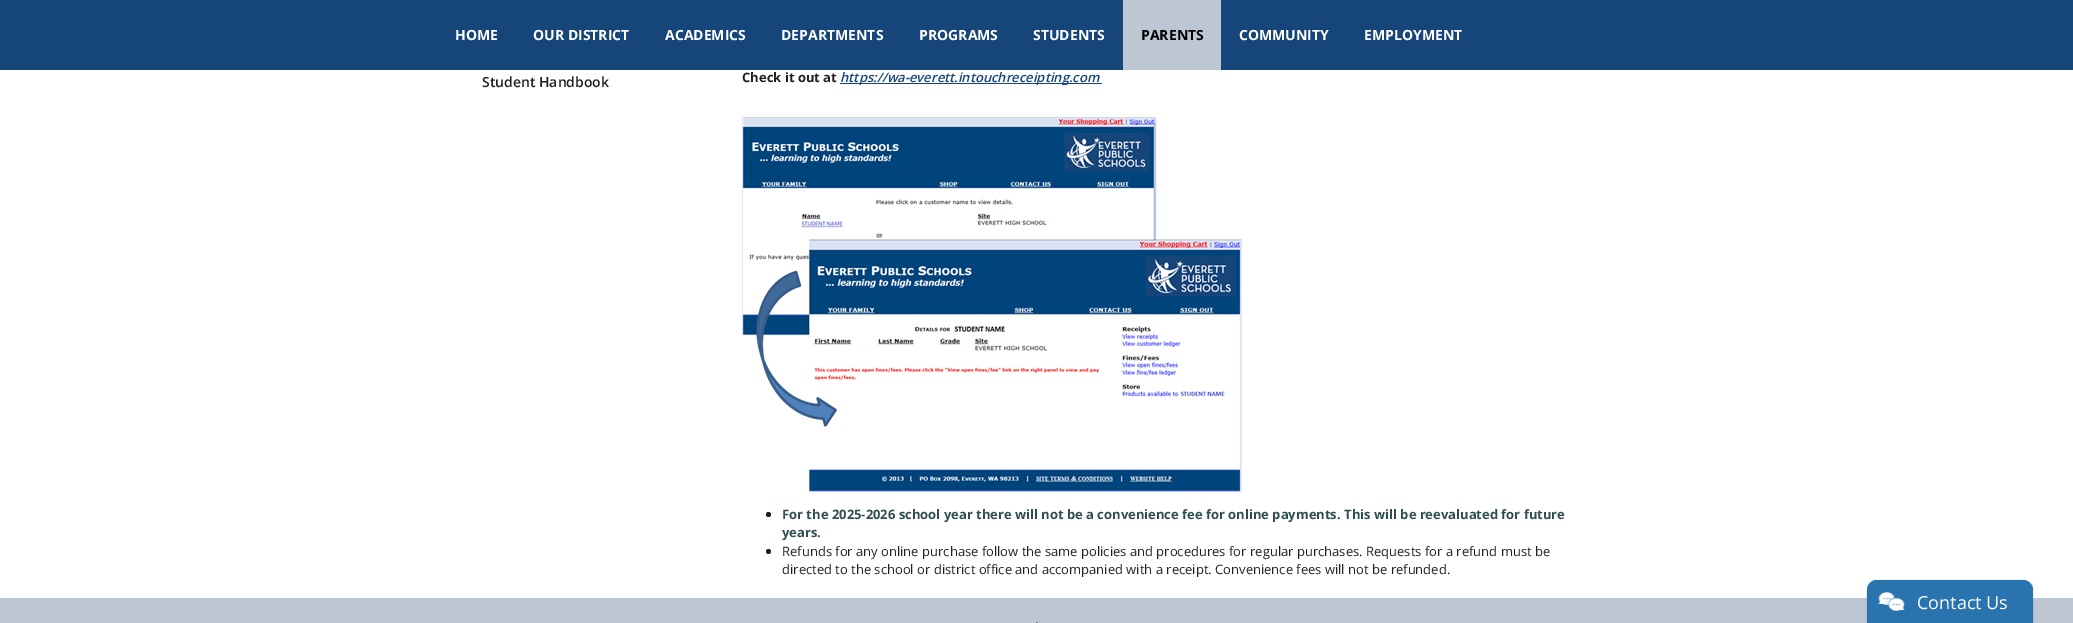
%!PS-Adobe-3.0
%%BoundingBox: 0 0 2073 623
%%LanguageLevel: 3
%%Pages: 1
%%EndComments
%%BeginProlog
/m { moveto } bind def
/l { lineto } bind def
/c { curveto } bind def
/h { closepath } bind def
/f { fill } bind def
/fn { [ exch dup neg 0 0 3 -1 roll 0 0 ] selectfont } def
/tx { moveto show } def
/bx { rectfill } def
/al { dup .setfillconstantalpha .setstrokeconstantalpha } def
/ci { newpath 0 360 arc closepath } def
/rr { 5 dict begin { /r /h /w /y /x } { exch def } forall
  x r add y moveto x w add y 2 copy h add r arct x w add y h add x 1 index r arct
  x y h add x y r arct x y 2 copy exch w add exch r arct closepath end } def
/sh { 12 dict begin { /a /b /q /h /w /y /x } { exch def } forall gsave /was 0 def
  9 -2 -9 { dup b mul 4 div /e exch def 1 sub .425 mul 2.718 exch exp 1 add a .99 .min exch div /now exch def
    1 1 now sub 1 was sub div sub al /was now def
    w h .min e 2 mul add 0 gt { x e sub y e sub w e 2 mul add h e 2 mul add
      q e add b .6 mul add w h .min 2 div e add .min 0 .max rr fill } if } for grestore end } def
/im { 5 dict begin { /h /w /y /x /name } { exch def } forall
  gsave x y translate w h scale
  w h 8 [w 0 0 h 0 0] name (r) file false 3 colorimage grestore end } def
%%EndProlog
%%BeginSetup
<< /PageSize [2073 623] /PageUsesTransparency true >> setpagedevice
%%EndSetup
%%Page: 1 1
0 .pushpdf14devicefilter
0 623 translate 1 -1 scale
4 setmiterlimit
1 setgray
0 0 2073 623 bx
0.086 0.271 0.478 setrgbcolor
0 0 2073 70 bx
/OpenSans-Bold 14 fn
1 setgray
(HOME) 455 40 tx
(OUR DISTRICT) 533 40 tx
(ACADEMICS) 665 40 tx
(DEPARTMENTS) 781 40 tx
(PROGRAMS) 919 40 tx
(STUDENTS) 1033 40 tx
0.741 0.776 0.827 setrgbcolor
1123 0 98 70 bx
0 setgray
(PARENTS) 1141 40 tx
1 setgray
(COMMUNITY) 1239 40 tx
(EMPLOYMENT) 1364 40 tx
/OpenSans-SemiBold 14 fn
0.137 0.122 0.125 setrgbcolor
(Student Handbook) 482 87 tx
/OpenSans-Bold 13 fn
(Check it out at) 742 82 tx
0.086 0.271 0.478 setrgbcolor
840 83 262 1 bx
/OpenSans-SemiBoldItalic 13 fn
(https://wa-everett.intouchreceipting.com) 840 82 tx
(image0.raw) 742 117 500 375 im
0.137 0.122 0.125 setrgbcolor
768.5 514.5 2.5 ci f
/OpenSans-Bold 13 fn
0.184 0.31 0.31 setrgbcolor
(For the 2025-2026 school year there will not be a convenience fee for online payments. This will be reevaluated for future) 782 519 tx
(years.) 782 537 tx
0.137 0.122 0.125 setrgbcolor
768.5 551.5 2.5 ci f
/OpenSans-Regular 13 fn
(Refunds for any online purchase follow the same policies and procedures for regular purchases. Requests for a refund must be) 782 556 tx
(directed to the school or district office and accompanied with a receipt. Convenience fees will not be refunded.) 782 574 tx
0.741 0.776 0.827 setrgbcolor
0 598 2073 25 bx
0.086 0.271 0.478 setrgbcolor
1029 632.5 m 1028 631.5 l 1037 622 l 1046 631.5 l 1045 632.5 l 1037 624 l h f
0 setgray
1867 580 166 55 10 0.5 0.22 sh
0.161 0.455 0.682 setrgbcolor
1877 580 m 2023 580 l 2028.5 580 2033 584.5 2033 590 c 2033 623 l 1867 623 l 1867 590 l 1867 584.5 1871.5 580 1877 580 c h f
(image1.raw) 1878 592 27 19 im
/OpenSans-Regular 18 fn
1 setgray
(Contact Us) 1917 609 tx
.poppdf14devicefilter showpage
%%EOF
